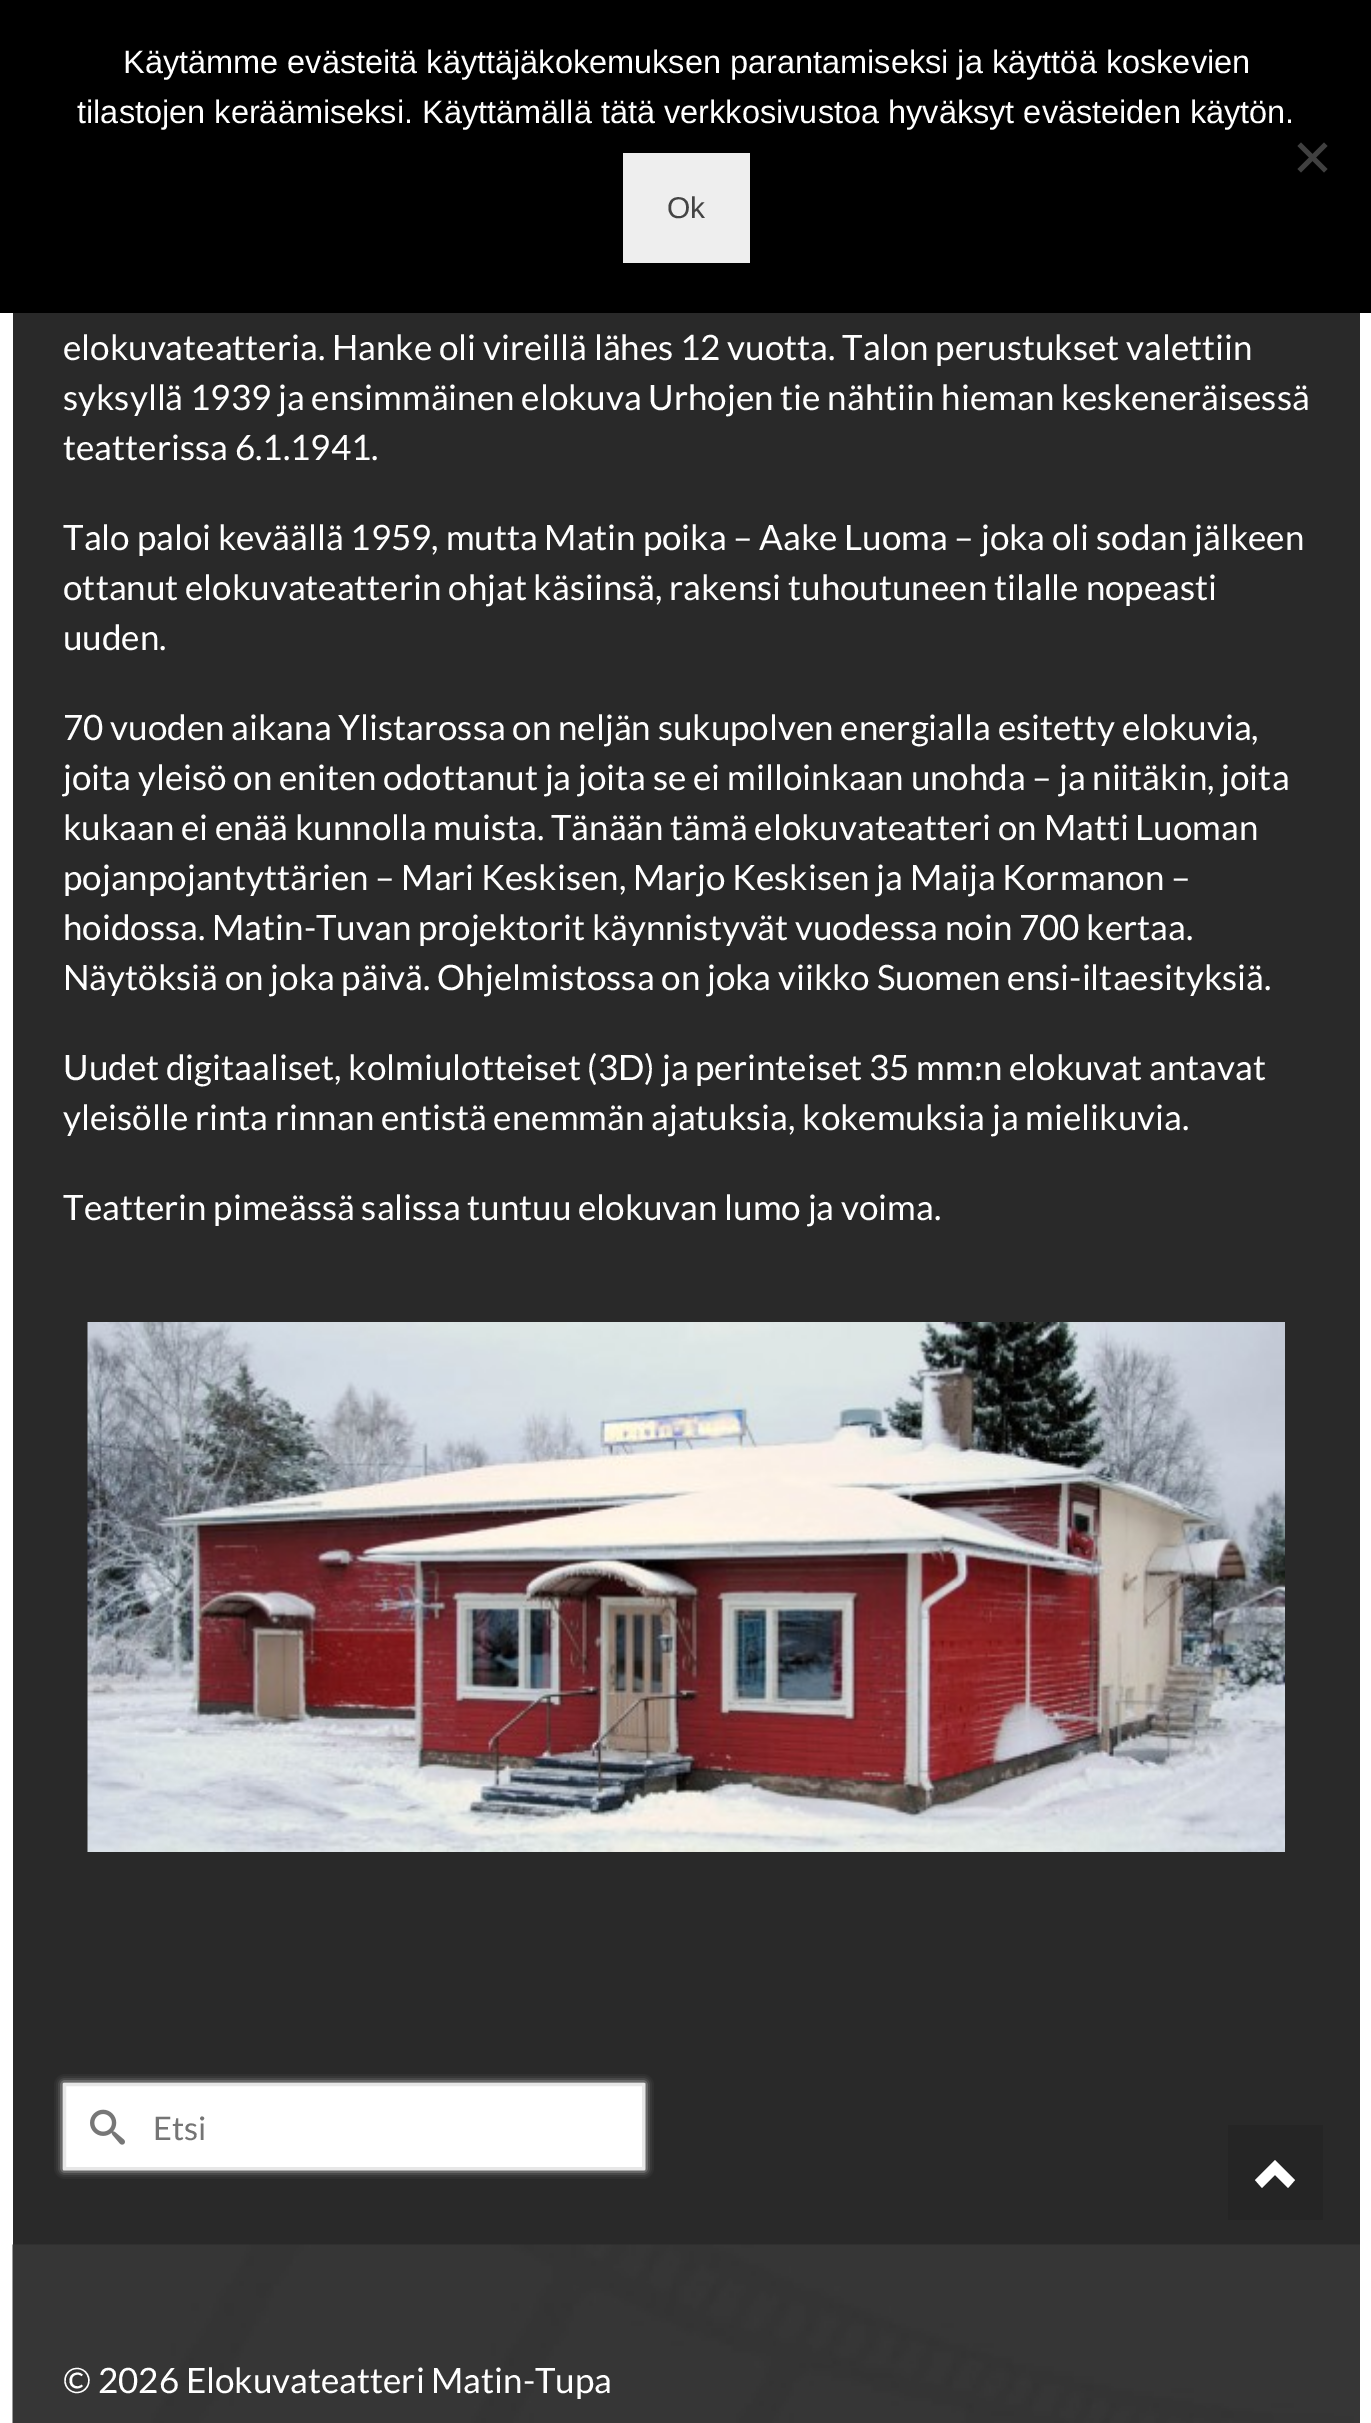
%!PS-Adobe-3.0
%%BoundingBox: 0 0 1371 2423
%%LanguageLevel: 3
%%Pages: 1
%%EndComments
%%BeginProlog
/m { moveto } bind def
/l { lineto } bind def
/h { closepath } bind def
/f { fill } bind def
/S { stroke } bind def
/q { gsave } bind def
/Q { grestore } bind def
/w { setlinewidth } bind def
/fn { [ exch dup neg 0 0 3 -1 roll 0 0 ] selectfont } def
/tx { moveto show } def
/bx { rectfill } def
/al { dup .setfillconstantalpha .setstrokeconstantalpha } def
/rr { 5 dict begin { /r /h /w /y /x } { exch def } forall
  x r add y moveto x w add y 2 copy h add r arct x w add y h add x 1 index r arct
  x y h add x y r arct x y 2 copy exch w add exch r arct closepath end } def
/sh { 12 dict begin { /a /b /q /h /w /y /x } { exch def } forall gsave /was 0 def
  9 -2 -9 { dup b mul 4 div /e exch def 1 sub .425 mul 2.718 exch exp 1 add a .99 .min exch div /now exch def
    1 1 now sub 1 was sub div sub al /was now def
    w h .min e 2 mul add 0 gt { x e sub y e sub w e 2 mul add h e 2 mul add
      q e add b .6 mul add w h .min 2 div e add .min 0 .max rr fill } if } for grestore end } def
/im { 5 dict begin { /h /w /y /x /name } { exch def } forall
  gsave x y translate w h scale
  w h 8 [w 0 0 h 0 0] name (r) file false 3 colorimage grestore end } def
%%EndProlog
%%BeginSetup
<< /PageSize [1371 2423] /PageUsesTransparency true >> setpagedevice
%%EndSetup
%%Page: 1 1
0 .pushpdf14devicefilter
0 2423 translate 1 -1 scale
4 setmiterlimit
1 setgray
0 0 1371 2423 bx
0 setgray
0 0 1371 313 bx
/LiberationSans-Regular 32.5 fn
1 setgray
(Käytämme evästeitä käyttäjäkokemuksen parantamiseksi ja käyttöä koskevien) 123 73 tx
(tilastojen keräämiseksi. Käyttämällä tätä verkkosivustoa hyväksyt evästeiden käytön.) 77 123 tx
0.251 setgray
1324 142.5 m 1327.5 146 l 1301 172.5 l 1297.5 169 l h f
1297.5 146 m 1301 142.5 l 1327.5 169 l 1324 172.5 l h f
0.933 setgray
623 153 127 110 bx
/LiberationSans-Regular 30 fn
0.267 setgray
(Ok) 667 218 tx
0.161 setgray
13 313 1347 1932 bx
/Lato-Regular 35 fn
1 setgray
(elokuvateatteria. Hanke oli vireillä lähes 12 vuotta. Talon perustukset valettiin) 63 360 tx
(syksyllä 1939 ja ensimmäinen elokuva Urhojen tie nähtiin hieman keskeneräisessä) 63 410 tx
(teatterissa 6.1.1941.) 63 460 tx
(Talo paloi keväällä 1959, mutta Matin poika – Aake Luoma – joka oli sodan jälkeen) 63 550 tx
(ottanut elokuvateatterin ohjat käsiinsä, rakensi tuhoutuneen tilalle nopeasti) 63 600 tx
(uuden.) 63 650 tx
(70 vuoden aikana Ylistarossa on neljän sukupolven energialla esitetty elokuvia,) 63 740 tx
(joita yleisö on eniten odottanut ja joita se ei milloinkaan unohda – ja niitäkin, joita) 63 790 tx
(kukaan ei enää kunnolla muista. Tänään tämä elokuvateatteri on Matti Luoman) 63 840 tx
(pojanpojantyttärien – Mari Keskisen, Marjo Keskisen ja Maija Kormanon –) 63 890 tx
(hoidossa. Matin-Tuvan projektorit käynnistyvät vuodessa noin 700 kertaa.) 63 940 tx
(Näytöksiä on joka päivä. Ohjelmistossa on joka viikko Suomen ensi-iltaesityksiä.) 63 990 tx
(Uudet digitaaliset, kolmiulotteiset \(3D\) ja perinteiset 35 mm:n elokuvat antavat) 63 1080 tx
(yleisölle rinta rinnan entistä enemmän ajatuksia, kokemuksia ja mielikuvia.) 63 1130 tx
(Teatterin pimeässä salissa tuntuu elokuvan lumo ja voima.) 63 1220 tx
(image0.raw) 87 1322 1198 530 im
63 2083 582 87 0 4 1 sh
64.5 2084.5 m 643.5 2084.5 l 643.5 2168.5 l 64.5 2168.5 l h q f Q
0.906 setgray
3 w
S
(image1.raw) 90 2109 35 36 im
/Lato-Regular 32.5 fn
0.459 setgray
(Etsi) 153 2140 tx
(image2.raw) 12 2244 1348 179 im
/Lato-Regular 35 fn
1 setgray
(© 2026 Elokuvateatteri Matin-Tupa) 63 2393 tx
0.145 setgray
1228 2125 95 95 bx
1 setgray
1255 2180 m 1262 2188 l 1275 2175 l 1288 2188 l 1295 2180 l 1275 2160 l h f
.poppdf14devicefilter showpage
%%EOF
